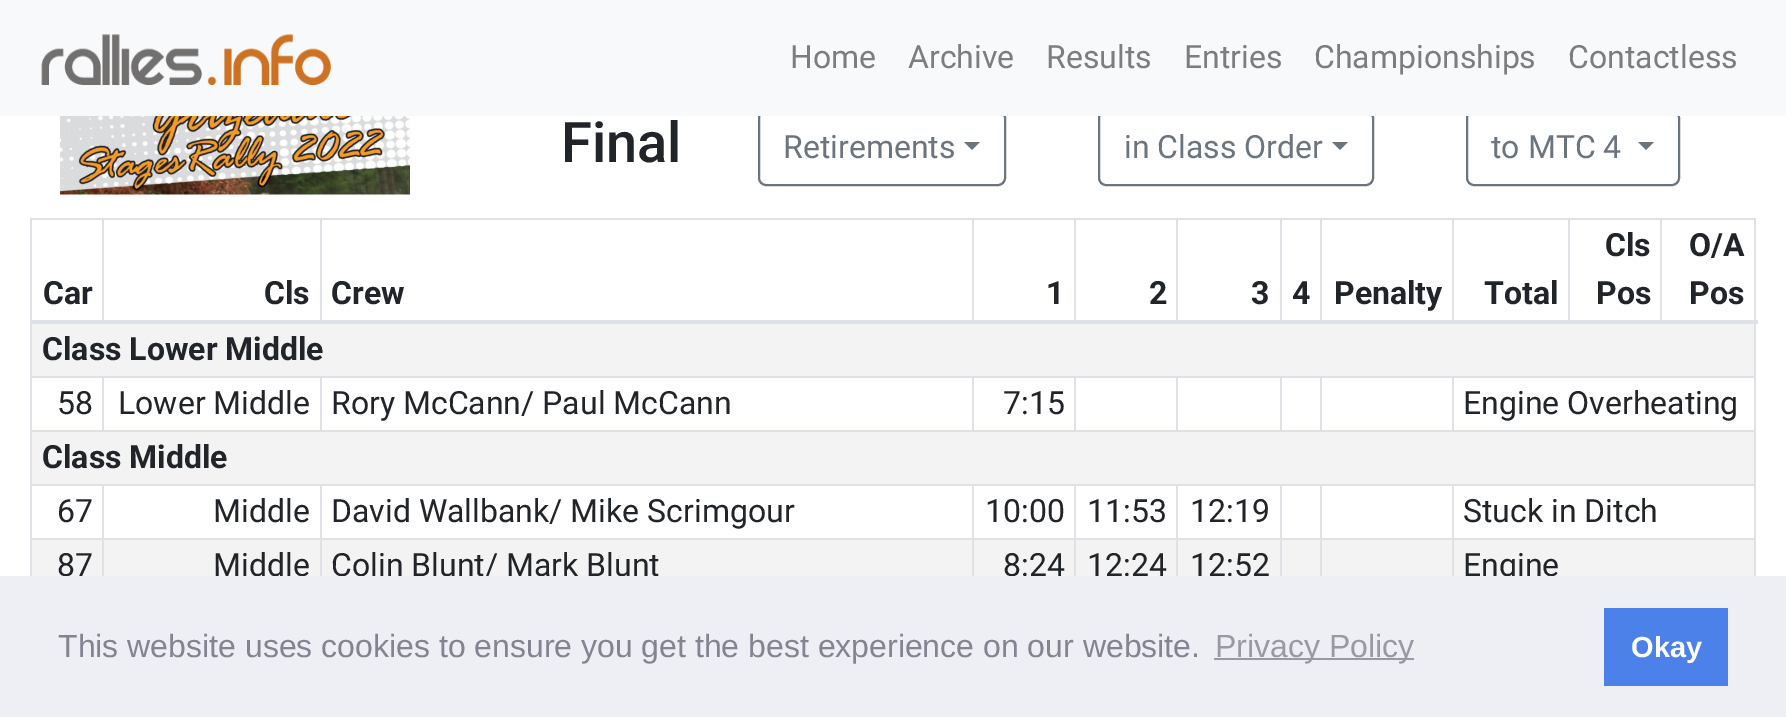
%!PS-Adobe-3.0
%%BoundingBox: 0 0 1786 717
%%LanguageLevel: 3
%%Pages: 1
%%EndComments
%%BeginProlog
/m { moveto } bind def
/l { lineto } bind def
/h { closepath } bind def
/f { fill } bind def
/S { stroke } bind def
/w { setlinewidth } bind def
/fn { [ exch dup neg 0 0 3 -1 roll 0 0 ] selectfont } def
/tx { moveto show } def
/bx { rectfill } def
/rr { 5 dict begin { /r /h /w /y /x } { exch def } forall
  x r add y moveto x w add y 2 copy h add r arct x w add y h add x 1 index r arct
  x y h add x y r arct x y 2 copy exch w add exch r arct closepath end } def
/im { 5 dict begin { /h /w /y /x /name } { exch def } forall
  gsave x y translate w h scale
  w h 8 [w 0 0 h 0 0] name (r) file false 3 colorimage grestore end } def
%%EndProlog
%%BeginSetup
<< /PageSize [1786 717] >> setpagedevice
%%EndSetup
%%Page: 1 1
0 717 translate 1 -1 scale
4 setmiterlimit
1 setgray
0 0 1786 717 bx
0.424 0.459 0.49 setrgbcolor
2 w
759 111 246 74 7 rr S
1099 111 274 74 7 rr S
1467 111 212 74 7 rr S
0.973 0.976 0.98 setrgbcolor
0 0 1786 116 bx
(image0.raw) 41 34 290 51 im
/Roboto-Regular 32 fn
0.486 0.49 0.49 setrgbcolor
(Home) 790 68 tx
(Archive) 908 68 tx
(Results) 1046 68 tx
(Entries) 1184 68 tx
(Championships) 1314 68 tx
(Contactless) 1568 68 tx
(image1.raw) 60 116 350 79 im
/Roboto-Medium 56 fn
0.129 0.145 0.161 setrgbcolor
(Final) 561 162 tx
/Roboto-Regular 32 fn
0.424 0.459 0.49 setrgbcolor
(Retirements) 783 158 tx
964 142 m 980 142 l 972 150 l h f
(in Class Order) 1124 158 tx
1332 142 m 1348 142 l 1340 150 l h f
(to MTC 4) 1491 158 tx
1638 142 m 1654 142 l 1646 150 l h f
0.871 0.886 0.902 setrgbcolor
30 218 1726 2 bx
1754 218 2 358 bx
30 218 2 358 bx
/Roboto-Bold 32 fn
0.129 0.145 0.161 setrgbcolor
(Car) 43 304 tx
0.871 0.886 0.902 setrgbcolor
102 218 2 106 bx
0.129 0.145 0.161 setrgbcolor
(Cls) 264 304 tx
0.871 0.886 0.902 setrgbcolor
320 218 2 106 bx
0.129 0.145 0.161 setrgbcolor
(Crew) 331 304 tx
0.871 0.886 0.902 setrgbcolor
972 218 2 106 bx
0.129 0.145 0.161 setrgbcolor
(1) 1046 304 tx
0.871 0.886 0.902 setrgbcolor
1074 218 2 106 bx
0.129 0.145 0.161 setrgbcolor
(2) 1149 304 tx
0.871 0.886 0.902 setrgbcolor
1176 218 2 106 bx
0.129 0.145 0.161 setrgbcolor
(3) 1251 304 tx
0.871 0.886 0.902 setrgbcolor
1280 218 2 106 bx
0.129 0.145 0.161 setrgbcolor
(4) 1292 304 tx
0.871 0.886 0.902 setrgbcolor
1320 218 2 106 bx
0.129 0.145 0.161 setrgbcolor
(Penalty) 1334 304 tx
0.871 0.886 0.902 setrgbcolor
1452 218 2 106 bx
0.129 0.145 0.161 setrgbcolor
(Total) 1484 304 tx
0.871 0.886 0.902 setrgbcolor
1568 218 2 106 bx
0.129 0.145 0.161 setrgbcolor
(Cls) 1605 256 tx
(Pos) 1596 304 tx
0.871 0.886 0.902 setrgbcolor
1660 218 2 106 bx
30 320 1728 4 bx
0.129 0.145 0.161 setrgbcolor
(O/A) 1689 256 tx
(Pos) 1689 304 tx
0.953 setgray
32 324 1722 52 bx
0.129 0.145 0.161 setrgbcolor
(Class Lower Middle) 42 360 tx
0.871 0.886 0.902 setrgbcolor
1452 376 304 2 bx
30 430 1726 2 bx
1452 376 2 56 bx
1320 376 134 2 bx
1320 376 2 56 bx
1280 376 42 2 bx
1280 376 2 56 bx
1176 376 106 2 bx
1176 376 2 56 bx
1074 376 104 2 bx
1074 376 2 56 bx
972 376 104 2 bx
972 376 2 56 bx
320 376 654 2 bx
320 376 2 56 bx
102 376 220 2 bx
102 376 2 56 bx
30 376 74 2 bx
/Roboto-Regular 32 fn
0.129 0.145 0.161 setrgbcolor
(58) 57 414 tx
(Lower Middle) 118 414 tx
(Rory McCann/ Paul McCann) 331 414 tx
(7:15) 1003 414 tx
(Engine Overheating) 1463 414 tx
0.953 setgray
32 432 1722 52 bx
/Roboto-Bold 32 fn
0.129 0.145 0.161 setrgbcolor
(Class Middle) 42 468 tx
0.871 0.886 0.902 setrgbcolor
1452 484 304 2 bx
1452 538 304 2 bx
0.953 setgray
32 540 1722 36 bx
0.871 0.886 0.902 setrgbcolor
1452 538 2 38 bx
1320 538 134 2 bx
1452 484 2 56 bx
1320 484 134 2 bx
1320 538 2 38 bx
1280 538 42 2 bx
1320 484 2 56 bx
1280 484 42 2 bx
1280 538 2 38 bx
1176 538 106 2 bx
1280 484 2 56 bx
1176 484 106 2 bx
1176 538 2 38 bx
1074 538 104 2 bx
1176 484 2 56 bx
1074 484 104 2 bx
1074 538 2 38 bx
972 538 104 2 bx
1074 484 2 56 bx
972 484 104 2 bx
972 538 2 38 bx
320 538 654 2 bx
972 484 2 56 bx
320 484 654 2 bx
320 538 2 38 bx
102 538 220 2 bx
320 484 2 56 bx
102 484 220 2 bx
102 538 2 38 bx
30 538 74 2 bx
102 484 2 56 bx
30 484 74 2 bx
/Roboto-Regular 32 fn
0.129 0.145 0.161 setrgbcolor
(67) 57 522 tx
(Middle) 213 522 tx
(David Wallbank/ Mike Scrimgour) 331 522 tx
(10:00) 985 522 tx
(11:53) 1087 522 tx
(12:19) 1190 522 tx
(Stuck in Ditch) 1463 522 tx
(87) 57 576 tx
(Middle) 213 576 tx
(Colin Blunt/ Mark Blunt) 331 576 tx
(8:24) 1003 576 tx
(12:24) 1087 576 tx
(12:52) 1190 576 tx
(Engine) 1463 576 tx
0.929 0.937 0.961 setrgbcolor
0 576 1786 141 bx
/LiberationSans-Regular 32 fn
0.514 0.514 0.569 setrgbcolor
(This website uses cookies to ensure you get the best experience on our website.) 58 657 tx
0.596 0.6 0.647 setrgbcolor
1214 658 200 2 bx
(Privacy Policy) 1215 657 tx
0.294 0.506 0.91 setrgbcolor
1604 608 124 78 bx
/LiberationSans-Bold 29 fn
1 setgray
(Okay) 1631 657 tx
showpage
%%EOF
